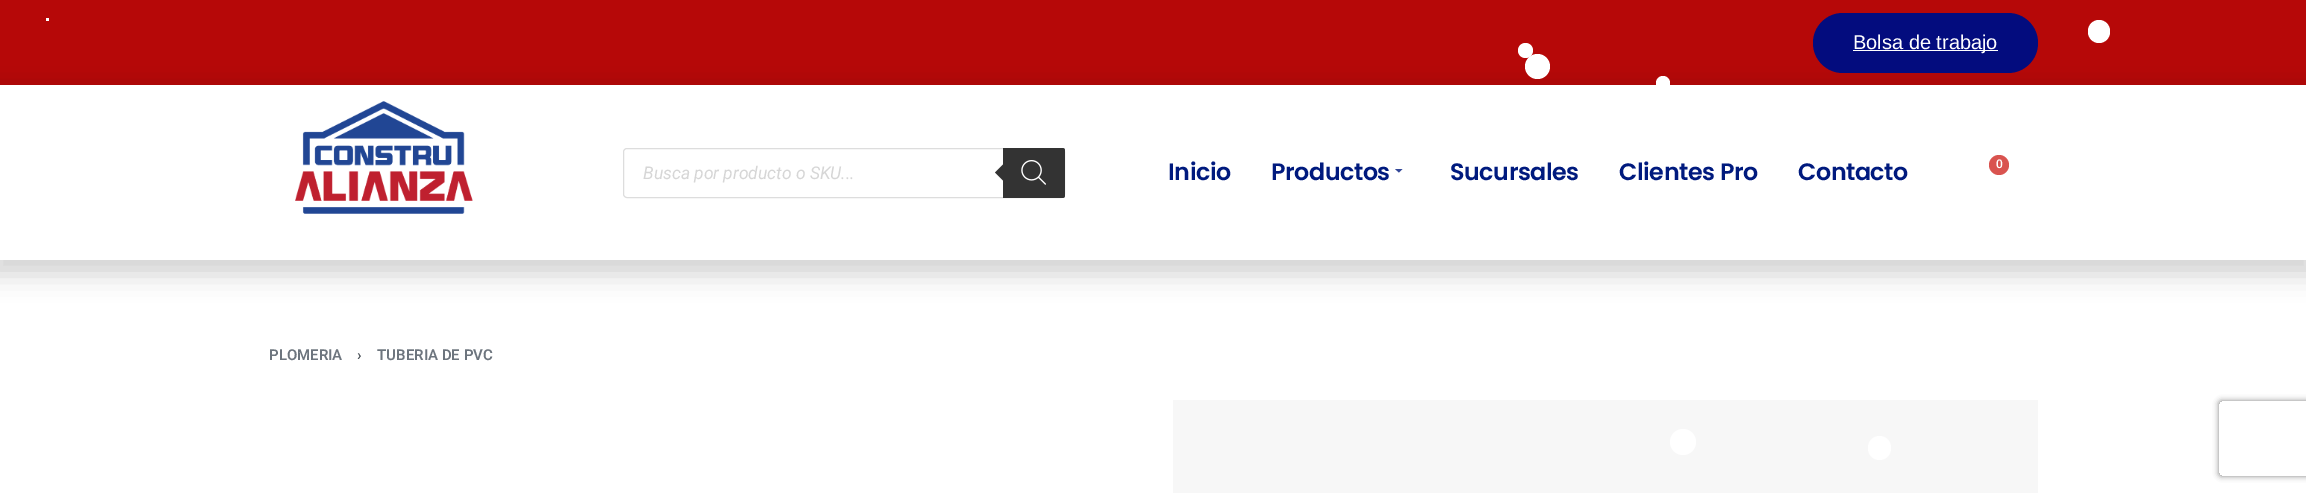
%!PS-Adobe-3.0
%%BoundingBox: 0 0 2306 493
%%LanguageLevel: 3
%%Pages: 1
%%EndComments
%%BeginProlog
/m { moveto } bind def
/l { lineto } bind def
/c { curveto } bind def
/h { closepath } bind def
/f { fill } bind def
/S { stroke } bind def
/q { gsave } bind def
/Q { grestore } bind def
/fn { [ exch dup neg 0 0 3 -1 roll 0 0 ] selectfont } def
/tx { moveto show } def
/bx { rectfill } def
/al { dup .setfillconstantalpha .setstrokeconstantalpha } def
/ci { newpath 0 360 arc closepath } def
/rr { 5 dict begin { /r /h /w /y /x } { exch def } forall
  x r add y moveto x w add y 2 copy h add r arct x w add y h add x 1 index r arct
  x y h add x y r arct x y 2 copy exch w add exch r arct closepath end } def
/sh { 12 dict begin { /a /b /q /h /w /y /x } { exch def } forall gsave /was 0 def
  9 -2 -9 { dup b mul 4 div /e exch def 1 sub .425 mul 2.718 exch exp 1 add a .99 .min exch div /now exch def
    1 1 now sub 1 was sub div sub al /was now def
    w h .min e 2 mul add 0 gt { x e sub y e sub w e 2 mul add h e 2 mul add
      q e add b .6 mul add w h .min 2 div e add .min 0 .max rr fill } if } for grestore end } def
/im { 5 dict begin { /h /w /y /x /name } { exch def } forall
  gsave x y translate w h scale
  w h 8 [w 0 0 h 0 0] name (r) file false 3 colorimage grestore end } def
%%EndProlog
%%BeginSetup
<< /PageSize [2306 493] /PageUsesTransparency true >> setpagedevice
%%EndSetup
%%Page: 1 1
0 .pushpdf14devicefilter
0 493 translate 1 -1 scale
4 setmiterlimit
1 setgray
0 0 2306 493 bx
0.714 0.031 0.031 setrgbcolor
0 0 2306 85 bx
1 setgray
46 18 3 3 bx
2088 20 22 23 11 rr f
q
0 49 m 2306 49 l 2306 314 l 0 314 l h 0 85 m 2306 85 l 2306 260 l 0 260 l h eoclip newpath
0 setgray
-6 88 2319 187 0 12.5 0.17 sh
Q
0.012 0.047 0.494 setrgbcolor
1813 13 225 60 30 rr f
1 setgray
1853 50 145 1 bx
/LiberationSans-Regular 20 fn
(Bolsa de trabajo) 1853 49 tx
(image0.raw) 295 101 178 113 im
0.867 setgray
623.5 148.5 441 49 3.5 rr S
/Roboto-Italic 17.5 fn
0.839 setgray
(Busca por producto o SKU...) 643 179 tx
0.2 setgray
1003 148 m 1062.5 148 l 1064 148 1065 149 1065 150.5 c 1065 195.5 l 1065 197 1064 198 1062.5 198 c 1003 198 l h f
1005 162.5 m 1005 182.5 l 995 172.5 l h f
(image1.raw) 1021 160 25 25 im
/Poppins-SemiBold 23.75 fn
0 0.102 0.494 setrgbcolor
1168 180 m -0.4 0 (Inicio) ashow
1271 180 m -0.4 0 (Productos) ashow
0.2 0.282 0.596 setrgbcolor
1395 169 m 1402.5 169 l 1399 172.5 l h f
0 0.102 0.494 setrgbcolor
1450 180 m -0.4 0 (Sucursales) ashow
1619 180 m -0.4 0 (Clientes Pro) ashow
1798 180 m -0.4 0 (Contacto) ashow
0.851 0.325 0.31 setrgbcolor
1999 165 10 ci f
/Roboto-Medium 12 fn
1 setgray
(0) 1996 168 tx
/Roboto-SemiBold 15 fn
0.427 0.459 0.494 setrgbcolor
(PLOMERIA) 269 360 tx
0.282 0.31 0.337 setrgbcolor
(›) 357 360 tx
0.427 0.459 0.494 setrgbcolor
(TUBERIA DE PVC) 377 360 tx
0.969 setgray
1173 400 865 93 bx
1 setgray
1525.5 50.5 7.5 ci f
1537.5 66.5 12.5 ci f
1663 83 7 ci f
1683 442 13 ci f
1868 436 23 24 11.5 rr f
q
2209 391 m 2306 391 l 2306 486 l 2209 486 l h 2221.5 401 m 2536.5 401 l 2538 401 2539 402 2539 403.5 c 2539 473.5 l 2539 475 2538 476 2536.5 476 c 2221.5 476 l 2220 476 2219 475 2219 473.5 c 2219 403.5 l 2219 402 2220 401 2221.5 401 c h eoclip newpath
0.502 setgray
2219 401 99 75 2.5 3 1 sh
Q
.poppdf14devicefilter showpage
%%EOF
